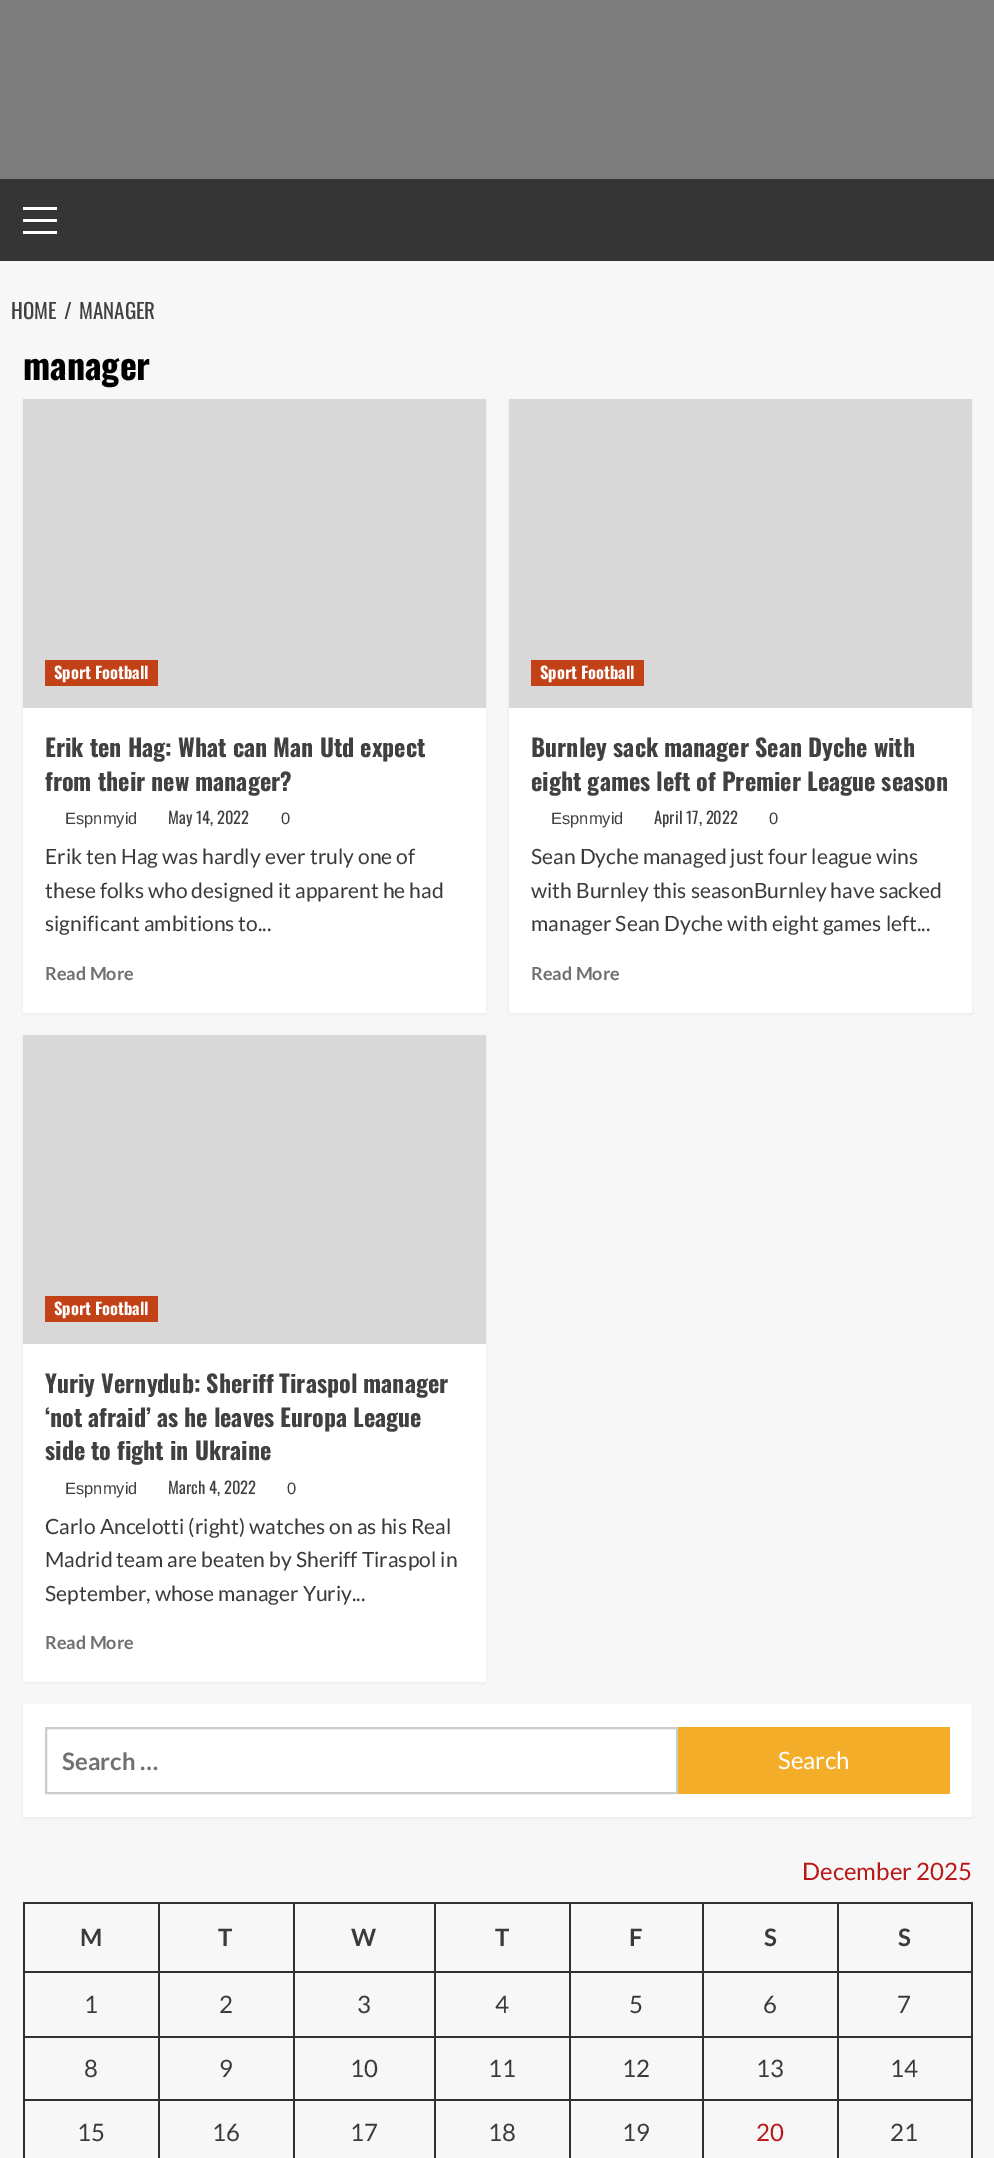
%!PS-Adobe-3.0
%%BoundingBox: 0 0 994 2158
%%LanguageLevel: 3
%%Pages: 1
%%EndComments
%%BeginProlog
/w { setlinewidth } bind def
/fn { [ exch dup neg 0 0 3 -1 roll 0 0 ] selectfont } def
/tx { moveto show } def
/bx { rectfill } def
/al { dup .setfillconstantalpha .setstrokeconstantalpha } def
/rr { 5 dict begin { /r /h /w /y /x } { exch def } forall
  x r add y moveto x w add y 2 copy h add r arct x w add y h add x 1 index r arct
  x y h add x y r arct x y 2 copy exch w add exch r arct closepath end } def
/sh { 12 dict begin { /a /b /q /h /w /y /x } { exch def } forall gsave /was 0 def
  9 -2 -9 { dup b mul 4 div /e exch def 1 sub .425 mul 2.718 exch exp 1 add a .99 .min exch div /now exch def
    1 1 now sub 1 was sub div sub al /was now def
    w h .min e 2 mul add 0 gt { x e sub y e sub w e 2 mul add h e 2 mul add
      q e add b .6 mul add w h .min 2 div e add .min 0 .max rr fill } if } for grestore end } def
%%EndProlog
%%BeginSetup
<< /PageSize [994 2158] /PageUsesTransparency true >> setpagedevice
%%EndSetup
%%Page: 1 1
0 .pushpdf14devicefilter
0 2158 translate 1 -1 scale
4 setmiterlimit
0.969 setgray
0 0 994 2158 bx
0.486 setgray
0 0 994 179 bx
0.208 setgray
0 179 994 82 bx
1 setgray
23 219 34 3 bx
23 207 34 3 bx
23 231 34 3 bx
/Oswald-Regular 21 fn
0.251 setgray
(HOME) 11 319 tx
(/) 64 319 tx
(MANAGER) 79 319 tx
/Oswald-Bold 36 fn
0 setgray
(manager) 23 380 tx
23 401 463 613 0 1.5 0.05 sh
1 setgray
23 708 463 305 bx
0.847 setgray
23 399 463 309 bx
0.765 0.255 0.086 setrgbcolor
45 660 113 26 bx
/Oswald-Bold 16.5 fn
0.992 setgray
(Sport Football) 54 679 tx
/Oswald-Bold 24 fn
0.251 setgray
(Erik ten Hag: What can Man Utd expect) 45 757 tx
(from their new manager?) 45 791 tx
/LiberationSans-Regular 16.5 fn
(Espnmyid) 65 824 tx
/Oswald-Regular 16.5 fn
(May 14, 2022) 168 824 tx
/LiberationSans-Regular 16.5 fn
(0) 281 824 tx
/Lato-Regular 21 fn
0.227 setgray
(Erik ten Hag was hardly ever truly one of) 45 864 tx
(these folks who designed it apparent he had) 45 898 tx
(significant ambitions to...) 45 931 tx
/Lato-Bold 18 fn
0.439 setgray
(Read More) 45 980 tx
0 setgray
509 401 463 613 0 1.5 0.05 sh
1 setgray
509 708 463 305 bx
0.847 setgray
509 399 463 309 bx
0.765 0.255 0.086 setrgbcolor
531 660 113 26 bx
/Oswald-Bold 16.5 fn
0.992 setgray
(Sport Football) 540 679 tx
/Oswald-Bold 24 fn
0.251 setgray
(Burnley sack manager Sean Dyche with) 531 757 tx
(eight games left of Premier League season) 531 791 tx
/LiberationSans-Regular 16.5 fn
(Espnmyid) 551 824 tx
/Oswald-Regular 16.5 fn
(April 17, 2022) 654 824 tx
/LiberationSans-Regular 16.5 fn
(0) 769 824 tx
/Lato-Regular 21 fn
0.227 setgray
(Sean Dyche managed just four league wins) 531 864 tx
(with Burnley this seasonBurnley have sacked) 531 898 tx
(manager Sean Dyche with eight games left...) 531 931 tx
/Lato-Bold 18 fn
0.439 setgray
(Read More) 531 980 tx
0 setgray
23 1037 463 646 0 1.5 0.05 sh
1 setgray
23 1344 463 338 bx
0.847 setgray
23 1035 463 309 bx
0.765 0.255 0.086 setrgbcolor
45 1296 113 26 bx
/Oswald-Bold 16.5 fn
0.992 setgray
(Sport Football) 54 1315 tx
/Oswald-Bold 24 fn
0.251 setgray
(Yuriy Vernydub: Sheriff Tiraspol manager) 45 1393 tx
(‘not afraid’ as he leaves Europa League) 45 1427 tx
(side to fight in Ukraine) 45 1460 tx
/LiberationSans-Regular 16.5 fn
(Espnmyid) 65 1494 tx
/Oswald-Regular 16.5 fn
(March 4, 2022) 168 1494 tx
/LiberationSans-Regular 16.5 fn
(0) 287 1494 tx
/Lato-Regular 21 fn
0.227 setgray
(Carlo Ancelotti \(right\) watches on as his Real) 45 1534 tx
(Madrid team are beaten by Sheriff Tiraspol in) 45 1567 tx
(September, whose manager Yuriy...) 45 1601 tx
/Lato-Bold 18 fn
0.439 setgray
(Read More) 45 1649 tx
0 setgray
23 1706 949 112 0 1.5 0.05 sh
1 setgray
23 1704 949 113 bx
0.8 setgray
2 w
46 1728 631 65 rectstroke
/Lato-Bold 24 fn
0.439 setgray
(Search …) 62 1770 tx
0.953 0.678 0.161 setrgbcolor
678 1727 272 67 bx
/Lato-Regular 24 fn
0.992 setgray
(Search) 778 1769 tx
0.733 0.098 0.098 setrgbcolor
(December 2025) 802 1880 tx
0.192 setgray
837 1902 135 2 bx
837 1971 135 2 bx
837 2036 135 2 bx
837 2099 135 2 bx
837 2099 2 59 bx
702 2099 137 2 bx
837 2036 2 64 bx
702 2036 137 2 bx
837 1971 2 66 bx
702 1971 137 2 bx
837 1902 2 71 bx
702 1902 137 2 bx
702 2099 2 59 bx
569 2099 135 2 bx
702 2036 2 64 bx
569 2036 135 2 bx
702 1971 2 66 bx
569 1971 135 2 bx
702 1902 2 71 bx
569 1902 135 2 bx
569 2099 2 59 bx
434 2099 136 2 bx
569 2036 2 64 bx
434 2036 136 2 bx
569 1971 2 66 bx
434 1971 136 2 bx
569 1902 2 71 bx
434 1902 136 2 bx
434 2099 2 59 bx
293 2099 142 2 bx
434 2036 2 64 bx
293 2036 142 2 bx
434 1971 2 66 bx
293 1971 142 2 bx
434 1902 2 71 bx
293 1902 142 2 bx
293 2099 2 59 bx
158 2099 136 2 bx
293 2036 2 64 bx
158 2036 136 2 bx
293 1971 2 66 bx
158 1971 136 2 bx
293 1902 2 71 bx
158 1902 136 2 bx
158 2099 2 59 bx
23 2099 136 2 bx
158 2036 2 64 bx
23 2036 136 2 bx
158 1971 2 66 bx
23 1971 136 2 bx
158 1902 2 71 bx
23 1902 136 2 bx
23 2099 2 59 bx
23 2036 2 64 bx
23 1971 2 66 bx
23 1902 2 71 bx
/Lato-Bold 24 fn
0.227 setgray
(M) 80 1946 tx
(T) 218 1946 tx
(W) 351 1946 tx
(T) 495 1946 tx
(F) 629 1946 tx
(S) 764 1946 tx
0.192 setgray
971 2099 2 59 bx
971 2036 2 64 bx
971 1971 2 66 bx
971 1902 2 71 bx
0.227 setgray
(S) 898 1946 tx
/Lato-Regular 24 fn
(1) 84 2013 tx
(2) 219 2013 tx
(3) 357 2013 tx
(4) 495 2013 tx
(5) 629 2013 tx
(6) 763 2013 tx
(7) 897 2013 tx
(8) 84 2077 tx
(9) 219 2077 tx
(10) 350 2077 tx
(11) 488 2077 tx
(12) 622 2077 tx
(13) 756 2077 tx
(14) 890 2077 tx
(15) 77 2141 tx
(16) 212 2141 tx
(17) 350 2141 tx
(18) 488 2141 tx
(19) 622 2141 tx
0.733 0.098 0.098 setrgbcolor
(20) 756 2141 tx
0.227 setgray
(21) 890 2141 tx
.poppdf14devicefilter showpage
%%EOF
